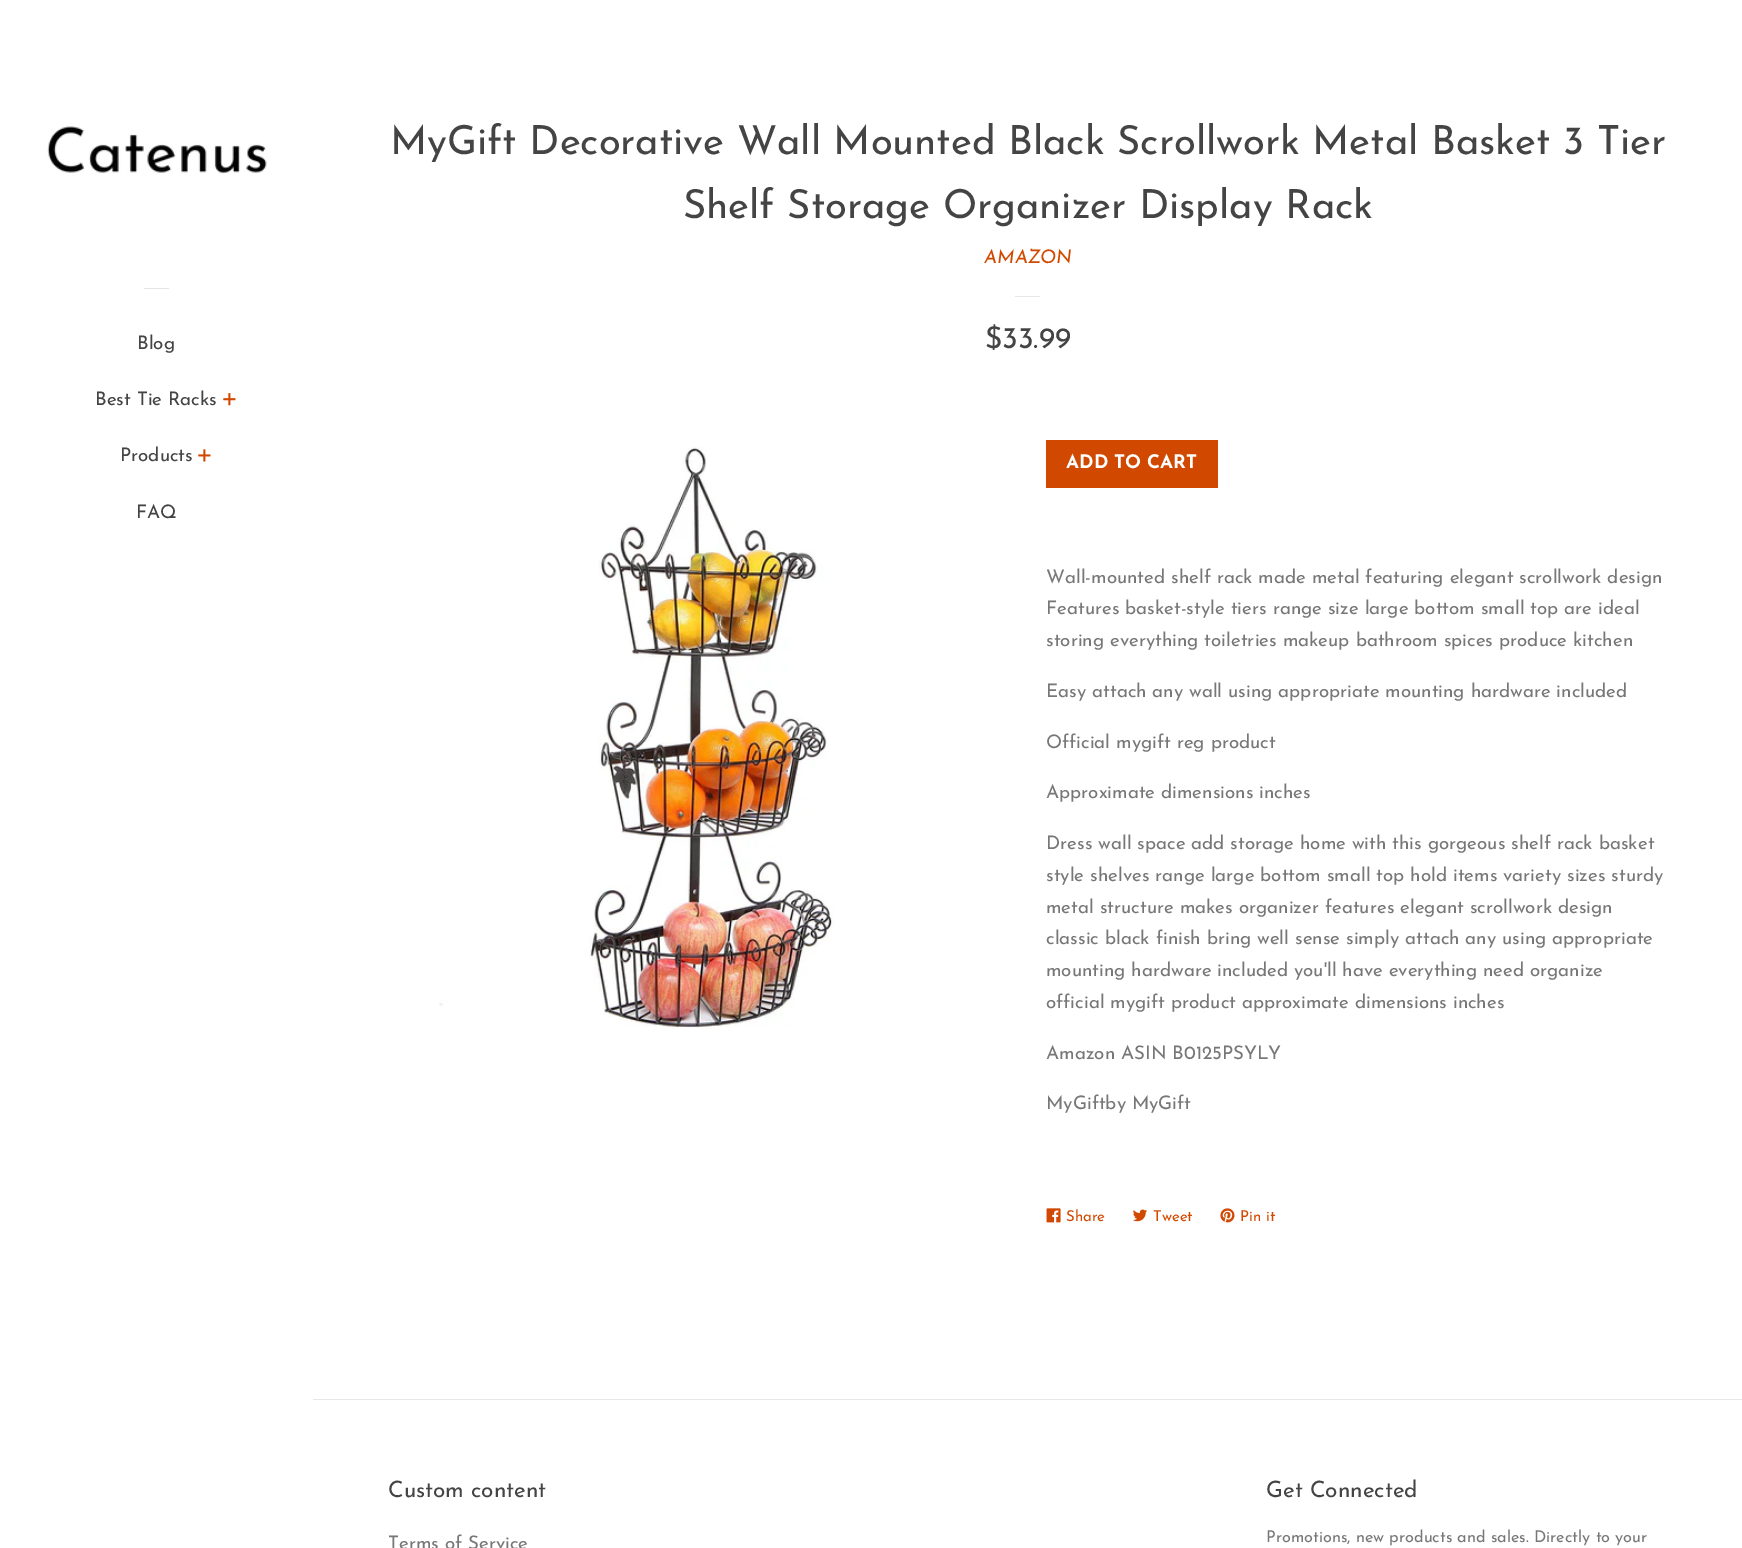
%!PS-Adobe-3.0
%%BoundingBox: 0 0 1742 1548
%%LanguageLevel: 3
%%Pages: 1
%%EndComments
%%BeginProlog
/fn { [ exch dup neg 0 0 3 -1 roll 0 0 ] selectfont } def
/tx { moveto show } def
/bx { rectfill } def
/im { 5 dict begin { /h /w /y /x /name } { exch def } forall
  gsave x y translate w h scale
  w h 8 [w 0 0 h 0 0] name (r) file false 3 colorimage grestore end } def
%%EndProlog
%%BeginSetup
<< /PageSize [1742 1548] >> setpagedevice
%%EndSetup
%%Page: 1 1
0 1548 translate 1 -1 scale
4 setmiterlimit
1 setgray
0 0 1742 1548 bx
(image0.raw) 47 126 220 48 im
0.902 setgray
144 288 25 1 bx
/JosefinSans-Regular 18.75 fn
0.267 setgray
(Blog) 137 349 tx
(Best Tie Racks) 95 405 tx
(image1.raw) 223 393 13 13 im
(Products) 120 461 tx
(image2.raw) 198 449 13 13 im
(FAQ) 136 518 tx
/JosefinSans-Regular 40 fn
(MyGift Decorative Wall Mounted Black Scrollwork Metal Basket 3 Tier) 390 154 tx
(Shelf Storage Organizer Display Rack) 683 218 tx
/JosefinSans-Italic 18.75 fn
0.82 0.282 0 setrgbcolor
(AMAZON) 984 263 tx
0.906 setgray
1015 296 25 1 bx
/JosefinSans-Regular 30 fn
0.267 setgray
($33.99) 985 348 tx
(image3.raw) 439 447 396 582 im
0.82 0.282 0 setrgbcolor
1046 440 172 48 bx
/JosefinSans-Bold 18.75 fn
1 setgray
(ADD TO CART) 1066 468 tx
/JosefinSans-Regular 18.75 fn
0.467 setgray
(Wall-mounted shelf rack made metal featuring elegant scrollwork design) 1046 583 tx
(Features basket-style tiers range size large bottom small top are ideal) 1046 614 tx
(storing everything toiletries makeup bathroom spices produce kitchen) 1046 646 tx
(Easy attach any wall using appropriate mounting hardware included) 1046 697 tx
(Official mygift reg product) 1046 748 tx
(Approximate dimensions inches) 1046 798 tx
(Dress wall space add storage home with this gorgeous shelf rack basket) 1046 849 tx
(style shelves range large bottom small top hold items variety sizes sturdy) 1046 881 tx
(metal structure makes organizer features elegant scrollwork design) 1046 913 tx
(classic black finish bring well sense simply attach any using appropriate) 1046 944 tx
(mounting hardware included you'll have everything need organize) 1046 976 tx
(official mygift product approximate dimensions inches) 1046 1008 tx
(Amazon ASIN B0125PSYLY) 1046 1059 tx
(MyGiftby MyGift) 1046 1109 tx
(image4.raw) 1046 1208 15 15 im
/JosefinSans-Regular 15 fn
0.82 0.282 0 setrgbcolor
(Share) 1066 1221 tx
(image5.raw) 1133 1209 14 13 im
(Tweet) 1153 1221 tx
(image6.raw) 1220 1208 15 15 im
(Pin it) 1240 1221 tx
0.906 setgray
313 1399 1429 1 bx
/JosefinSans-Regular 22.5 fn
0.267 setgray
(Custom content) 388 1497 tx
/JosefinSans-Regular 18.75 fn
0.467 setgray
(Terms of Service) 388 1549 tx
/JosefinSans-Regular 22.5 fn
0.267 setgray
(Get Connected) 1266 1497 tx
/JosefinSans-Regular 16.25 fn
0.467 setgray
(Promotions, new products and sales. Directly to your) 1266 1542 tx
showpage
%%EOF
